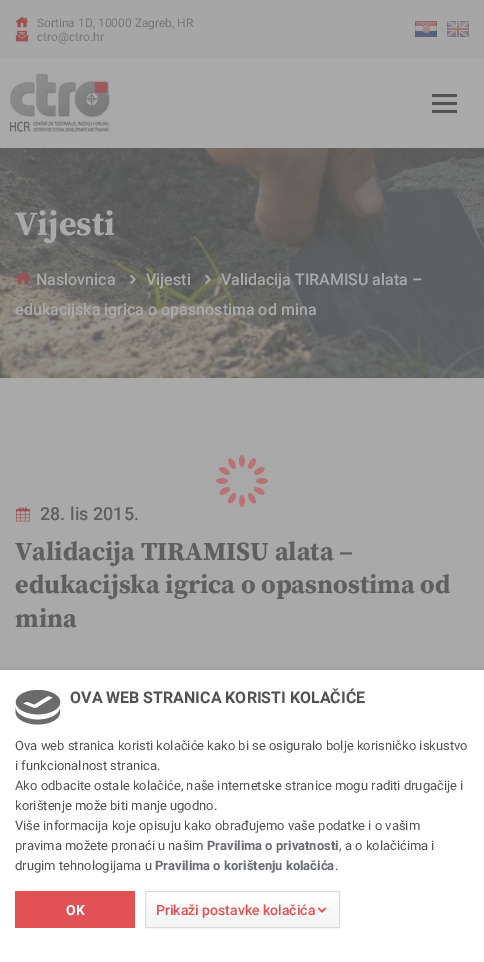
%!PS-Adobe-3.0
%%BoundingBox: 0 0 484 962
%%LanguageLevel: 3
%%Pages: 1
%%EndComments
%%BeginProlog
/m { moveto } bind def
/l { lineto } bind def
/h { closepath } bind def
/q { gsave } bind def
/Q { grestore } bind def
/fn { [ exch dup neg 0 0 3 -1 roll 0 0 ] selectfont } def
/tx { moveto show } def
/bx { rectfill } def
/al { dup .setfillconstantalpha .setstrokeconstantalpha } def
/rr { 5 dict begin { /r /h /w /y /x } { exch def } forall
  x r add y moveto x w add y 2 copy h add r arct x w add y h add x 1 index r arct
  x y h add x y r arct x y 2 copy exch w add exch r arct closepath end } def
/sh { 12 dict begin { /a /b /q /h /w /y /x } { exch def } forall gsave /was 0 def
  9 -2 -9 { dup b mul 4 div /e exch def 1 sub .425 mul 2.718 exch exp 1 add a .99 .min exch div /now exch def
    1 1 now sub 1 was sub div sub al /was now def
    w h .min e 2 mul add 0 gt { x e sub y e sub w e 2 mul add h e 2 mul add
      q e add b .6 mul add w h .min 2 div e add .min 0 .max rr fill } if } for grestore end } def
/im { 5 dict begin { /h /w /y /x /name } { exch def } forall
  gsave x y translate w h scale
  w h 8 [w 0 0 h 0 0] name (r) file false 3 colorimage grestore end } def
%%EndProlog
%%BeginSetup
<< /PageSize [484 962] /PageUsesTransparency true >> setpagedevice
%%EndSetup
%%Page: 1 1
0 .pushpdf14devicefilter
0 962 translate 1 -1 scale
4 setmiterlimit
0.663 setgray
0 0 484 962 bx
0.651 setgray
0 0 484 58 bx
(image0.raw) 15 17 14 11 im
/Roboto-Regular 12 fn
0.467 setgray
(Sortina 1D, 10000 Zagreb, HR) 37 27 tx
(image1.raw) 15 30 14 12 im
(ctro@ctro.hr) 37 41 tx
(image2.raw) 415 21 22 16 im
(image3.raw) 447 21 22 16 im
(image4.raw) 10 74 100 58 im
0.322 setgray
432 102 25 3 bx
432 94 25 3 bx
432 110 25 3 bx
(image5.raw) 0 148 484 230 im
/SourceSerifPro-Bold 34 fn
0.663 setgray
(Vijesti) 15 235 tx
(image6.raw) 16 272 14 13 im
(image7.raw) 205 274 6 11 im
/Roboto-Medium 16 fn
(Validacija TIRAMISU alata –) 221 285 tx
(edukacijska igrica o opasnostima od mina) 15 315 tx
(Naslovnica) 36 285 tx
(image8.raw) 130 274 6 11 im
(Vijesti) 146 285 tx
(image9.raw) 216 455 52 52 im
(image10.raw) 16 507 14 15 im
/Roboto-Medium 18 fn
0.365 0.373 0.38 setrgbcolor
(28. lis 2015.) 40 520 tx
/SourceSerifPro-Bold 26 fn
(Validacija TIRAMISU alata –) 15 560 tx
(edukacijska igrica o opasnostima od) 15 593 tx
(mina) 15 627 tx
0.322 setgray
0 670 484 292 0 3 0.2 sh
1 setgray
0 670 484 292 bx
(image11.raw) 15 690 46 35 im
/Roboto-Bold 16 fn
0.322 setgray
(OVA WEB STRANICA KORISTI KOLAČIĆE) 70 703 tx
/Roboto-Regular 13 fn
(Ova web stranica koristi kolačiće kako bi se osiguralo bolje korisničko iskustvo) 15 750 tx
(i funkcionalnost stranica.) 15 770 tx
(Ako odbacite ostale kolačiće, naše internetske stranice mogu raditi drugačije i) 15 790 tx
(korištenje može biti manje ugodno.) 15 810 tx
(Više informacija koje opisuju kako obrađujemo vaše podatke i o vašim) 15 830 tx
(pravima možete pronaći u našim) 15 850 tx
/Roboto-Bold 13 fn
0.412 0.424 0.439 setrgbcolor
(Pravilima o privatnosti) 207 850 tx
/Roboto-Regular 13 fn
0.322 setgray
(, a o kolačićima i) 339 850 tx
(drugim tehnologijama u) 15 870 tx
/Roboto-Bold 13 fn
0.412 0.424 0.439 setrgbcolor
(Pravilima o korištenju kolačića) 155 870 tx
/Roboto-Regular 13 fn
0.322 setgray
(.) 335 870 tx
0.886 0.322 0.329 setrgbcolor
15 891 120 37 bx
/Roboto-Bold 14 fn
1 setgray
(OK) 66 915 tx
q 146 900 m 339 900 l 339 927 l 146 927 l h clip newpath
<< /ShadingType 2 /ColorSpace /DeviceRGB /Coords [243 892 243 927] /Extend [true true] /Function << /FunctionType 2 /Domain [0 1] /C0 [1 1 1] /C1 [0.957 0.957 0.957] /N 1 >> >> shfill Q
0.863 setgray
145.5 891.5 194 36 rectstroke
/Roboto-Medium 14 fn
0.886 0.322 0.329 setrgbcolor
(Prikaži postavke kolačića) 156 915 tx
(image12.raw) 317 907 10 6 im
.poppdf14devicefilter showpage
%%EOF
